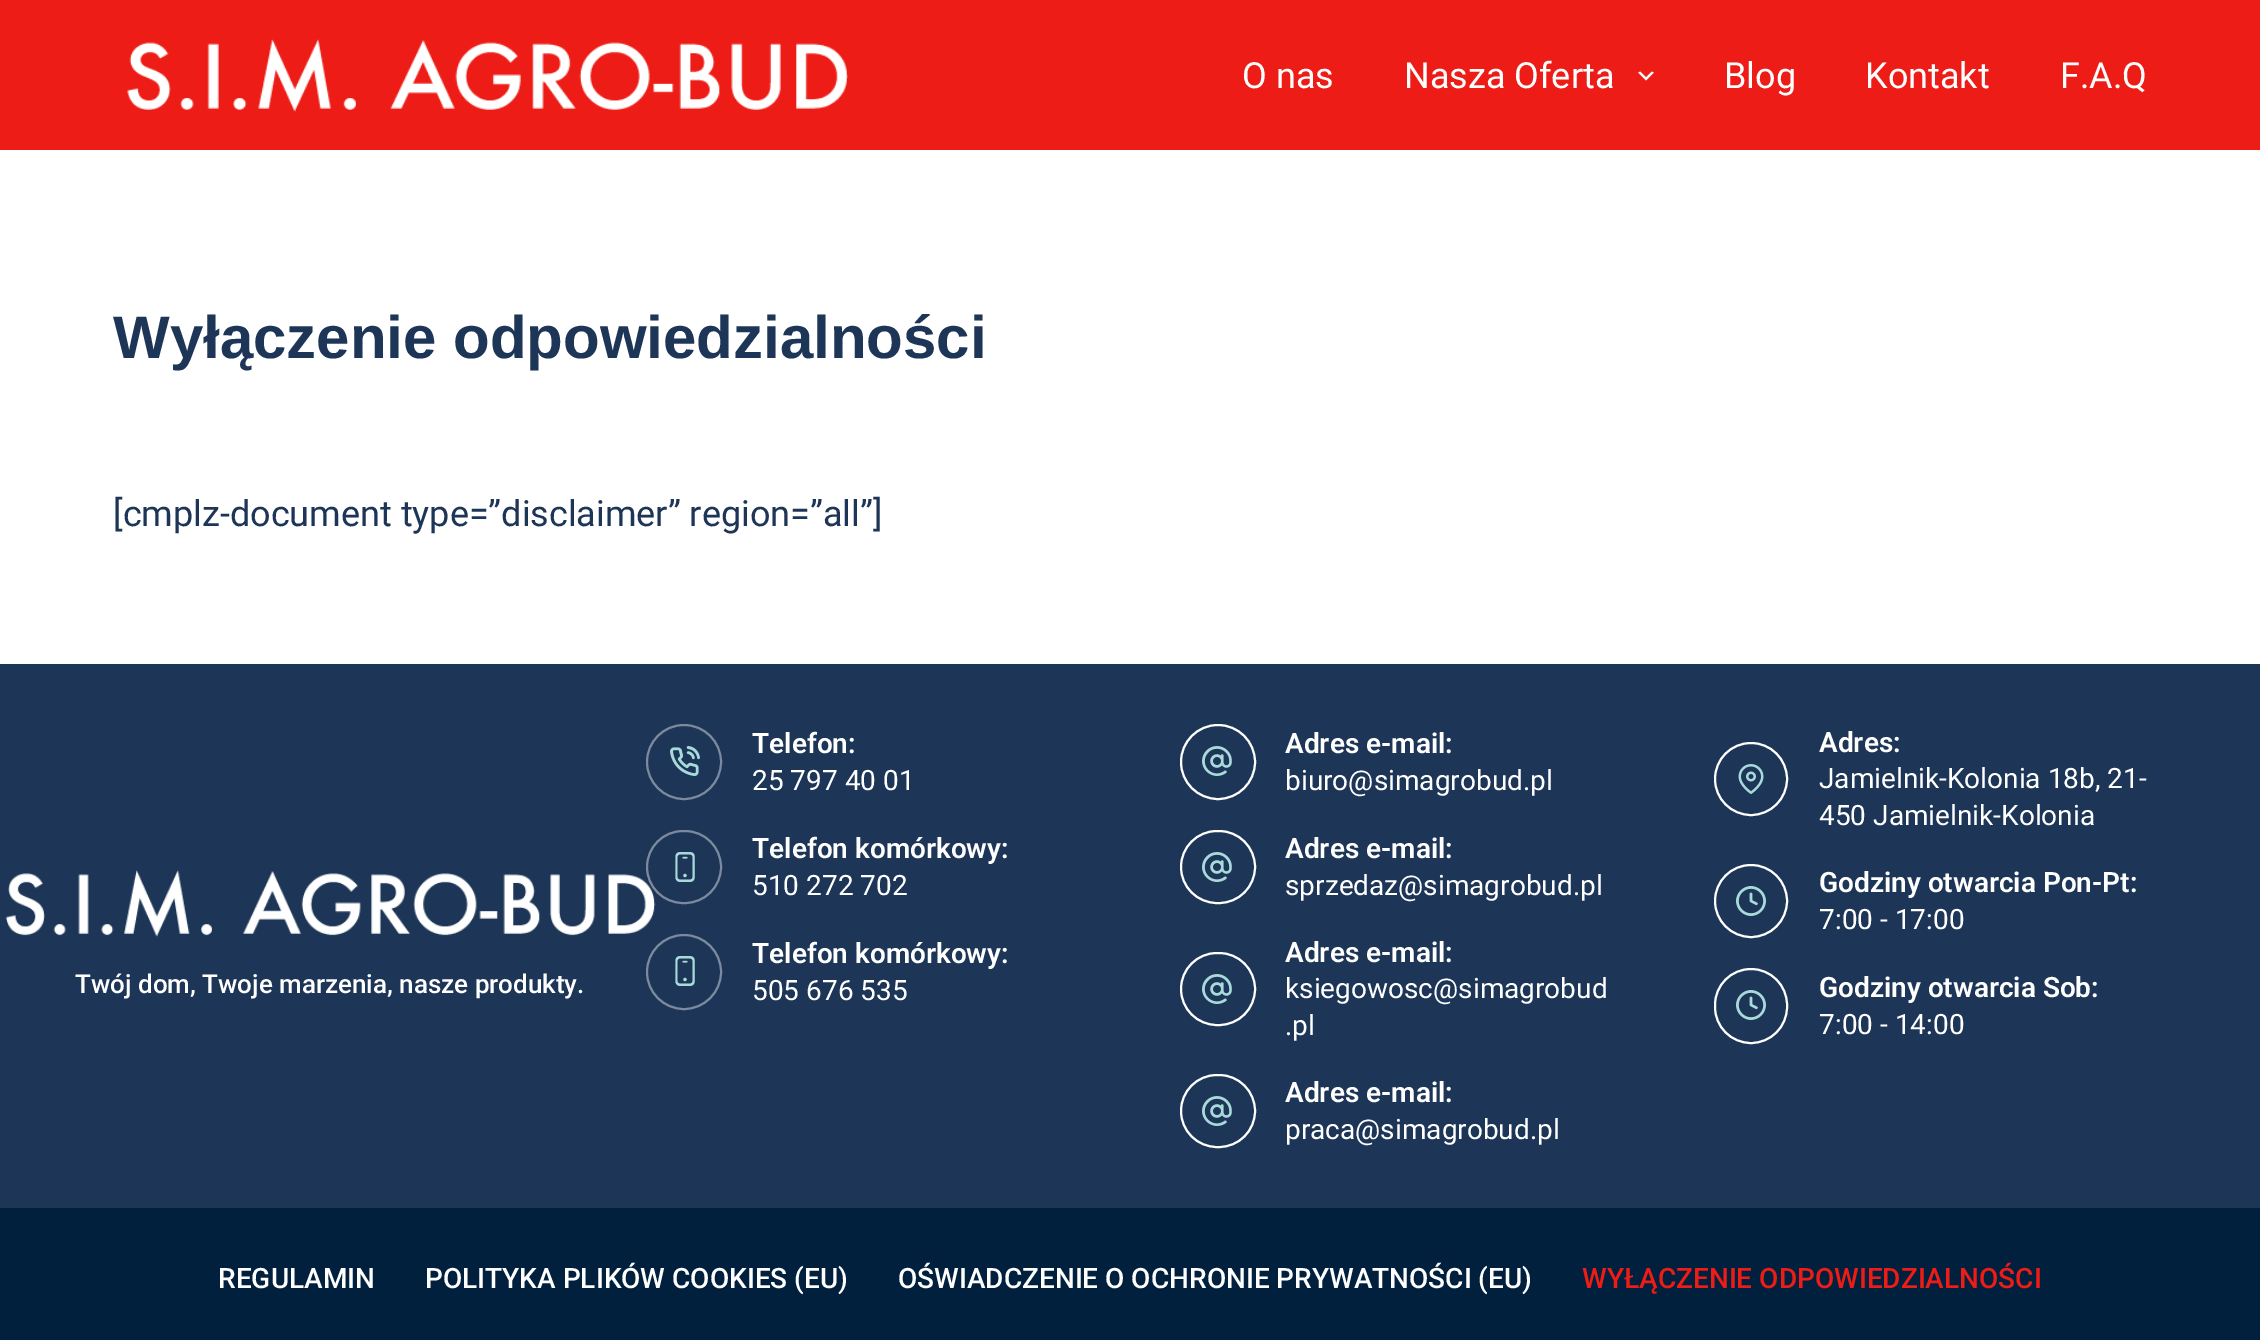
%!PS-Adobe-3.0
%%BoundingBox: 0 0 2260 1340
%%LanguageLevel: 3
%%Pages: 1
%%EndComments
%%BeginProlog
/S { stroke } bind def
/w { setlinewidth } bind def
/fn { [ exch dup neg 0 0 3 -1 roll 0 0 ] selectfont } def
/tx { moveto show } def
/bx { rectfill } def
/ci { newpath 0 360 arc closepath } def
/rr { 5 dict begin { /r /h /w /y /x } { exch def } forall
  x r add y moveto x w add y 2 copy h add r arct x w add y h add x 1 index r arct
  x y h add x y r arct x y 2 copy exch w add exch r arct closepath end } def
/im { 5 dict begin { /h /w /y /x /name } { exch def } forall
  gsave x y translate w h scale
  w h 8 [w 0 0 h 0 0] name (r) file false 3 colorimage grestore end } def
%%EndProlog
%%BeginSetup
<< /PageSize [2260 1340] >> setpagedevice
%%EndSetup
%%Page: 1 1
0 1340 translate 1 -1 scale
4 setmiterlimit
1 setgray
0 0 2260 1340 bx
0.929 0.11 0.086 setrgbcolor
0 0 2260 150 bx
(image0.raw) 127 39 721 73 im
/Roboto-Regular 36 fn
1 setgray
(O nas) 1242 88 tx
(Nasza Oferta) 1404 88 tx
(image1.raw) 1638 71 16 10 im
(Blog) 1724 88 tx
(Kontakt) 1865 88 tx
(F.A.Q) 2060 88 tx
/LiberationSans-Bold 60 fn
0.114 0.208 0.341 setrgbcolor
(Wyłączenie odpowiedzialności) 113 358 tx
/Roboto-Regular 36 fn
([cmplz-document type=”disclaimer” region=”all”]) 113 526 tx
0 664 2260 544 bx
(image2.raw) 5 870 651 67 im
/Roboto-Medium 26 fn
1 setgray
(Twój dom, Twoje marzenia, nasze produkty.) 75 993 tx
0.486 0.541 0.62 setrgbcolor
2 w
684 762 37 ci S
(image3.raw) 670 746 30 30 im
/Roboto-SemiBold 28 fn
1 setgray
(Telefon:) 752 753 tx
/Roboto-Regular 28 fn
(25 797 40 01) 752 790 tx
0.486 0.541 0.62 setrgbcolor
647 831 74 72 36 rr S
(image4.raw) 675 852 20 30 im
/Roboto-SemiBold 28 fn
1 setgray
(Telefon komórkowy:) 752 858 tx
/Roboto-Regular 28 fn
(510 272 702) 752 895 tx
0.486 0.541 0.62 setrgbcolor
684 972 37 ci S
(image4.raw) 675 956 20 30 im
/Roboto-SemiBold 28 fn
1 setgray
(Telefon komórkowy:) 752 963 tx
/Roboto-Regular 28 fn
(505 676 535) 752 1000 tx
1218 762 37 ci S
(image5.raw) 1202 746 30 30 im
/Roboto-SemiBold 28 fn
(Adres e-mail:) 1285 753 tx
/Roboto-Regular 28 fn
(biuro@simagrobud.pl) 1285 790 tx
1181 831 74 72 36 rr S
(image5.raw) 1202 852 30 30 im
/Roboto-SemiBold 28 fn
(Adres e-mail:) 1285 858 tx
/Roboto-Regular 28 fn
(sprzedaz@simagrobud.pl) 1285 895 tx
1181 953 74 72 36 rr S
(image5.raw) 1202 974 30 30 im
/Roboto-SemiBold 28 fn
(Adres e-mail:) 1285 962 tx
/Roboto-Regular 28 fn
(ksiegowosc@simagrobud) 1285 998 tx
(.pl) 1285 1035 tx
1181 1075 74 72 36 rr S
(image5.raw) 1202 1096 30 30 im
/Roboto-SemiBold 28 fn
(Adres e-mail:) 1285 1102 tx
/Roboto-Regular 28 fn
(praca@simagrobud.pl) 1285 1139 tx
1751 779 36 ci S
(image6.raw) 1738 764 26 30 im
/Roboto-SemiBold 28 fn
(Adres:) 1819 752 tx
/Roboto-Regular 28 fn
(Jamielnik-Kolonia 18b, 21-) 1819 788 tx
(450 Jamielnik-Kolonia) 1819 825 tx
1751 901 36 ci S
(image7.raw) 1736 886 30 30 im
/Roboto-SemiBold 28 fn
(Godziny otwarcia Pon-Pt:) 1819 892 tx
/Roboto-Regular 28 fn
(7:00 - 17:00) 1819 929 tx
1715 969 72 74 36 rr S
(image7.raw) 1736 990 30 30 im
/Roboto-SemiBold 28 fn
(Godziny otwarcia Sob:) 1819 997 tx
/Roboto-Regular 28 fn
(7:00 - 14:00) 1819 1034 tx
0.004 0.125 0.243 setrgbcolor
0 1208 2260 132 bx
/Roboto-Medium 28 fn
1 setgray
(REGULAMIN) 218 1288 tx
(POLITYKA PLIKÓW COOKIES \(EU\)) 425 1288 tx
(OŚWIADCZENIE O OCHRONIE PRYWATNOŚCI \(EU\)) 898 1288 tx
0.929 0.11 0.086 setrgbcolor
(WYŁĄCZENIE ODPOWIEDZIALNOŚCI) 1582 1288 tx
showpage
%%EOF
